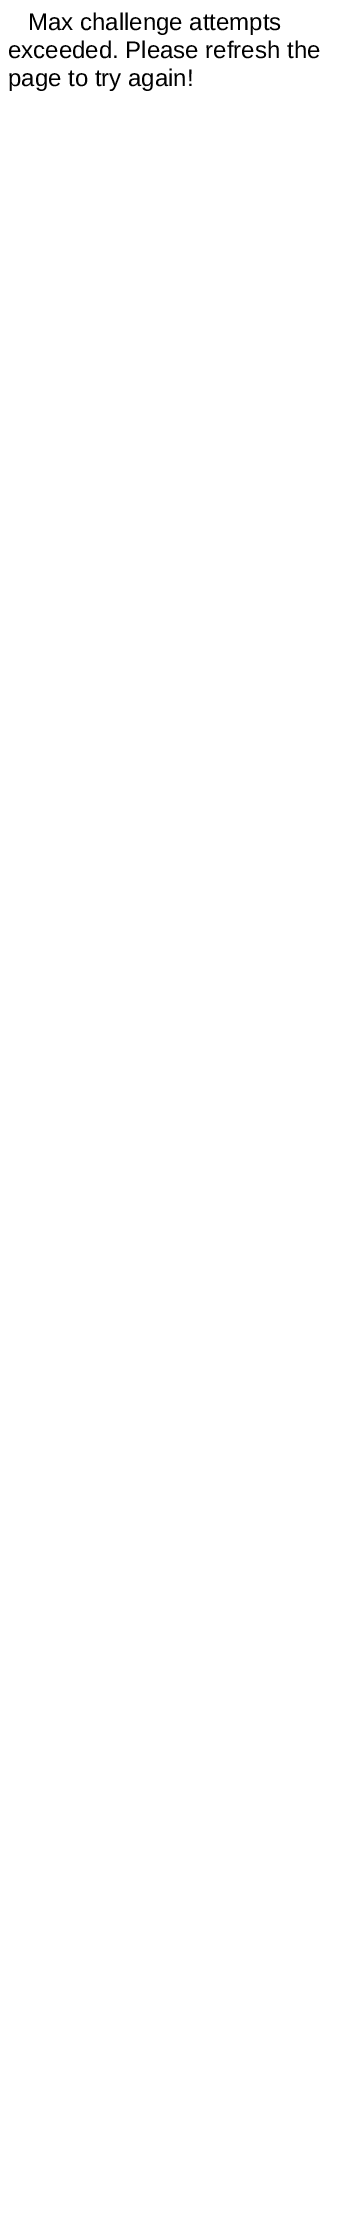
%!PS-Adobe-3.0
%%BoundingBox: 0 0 354 2217
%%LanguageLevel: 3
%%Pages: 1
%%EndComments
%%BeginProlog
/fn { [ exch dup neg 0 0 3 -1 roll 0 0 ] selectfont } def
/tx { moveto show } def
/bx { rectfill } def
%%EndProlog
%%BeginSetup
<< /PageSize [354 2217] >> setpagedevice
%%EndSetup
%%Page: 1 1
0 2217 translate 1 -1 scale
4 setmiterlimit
1 setgray
0 0 354 2217 bx
/LiberationSans-Regular 24 fn
0 setgray
(Max challenge attempts) 28 30 tx
(exceeded. Please refresh the) 8 58 tx
(page to try again!) 8 86 tx
showpage
%%EOF
